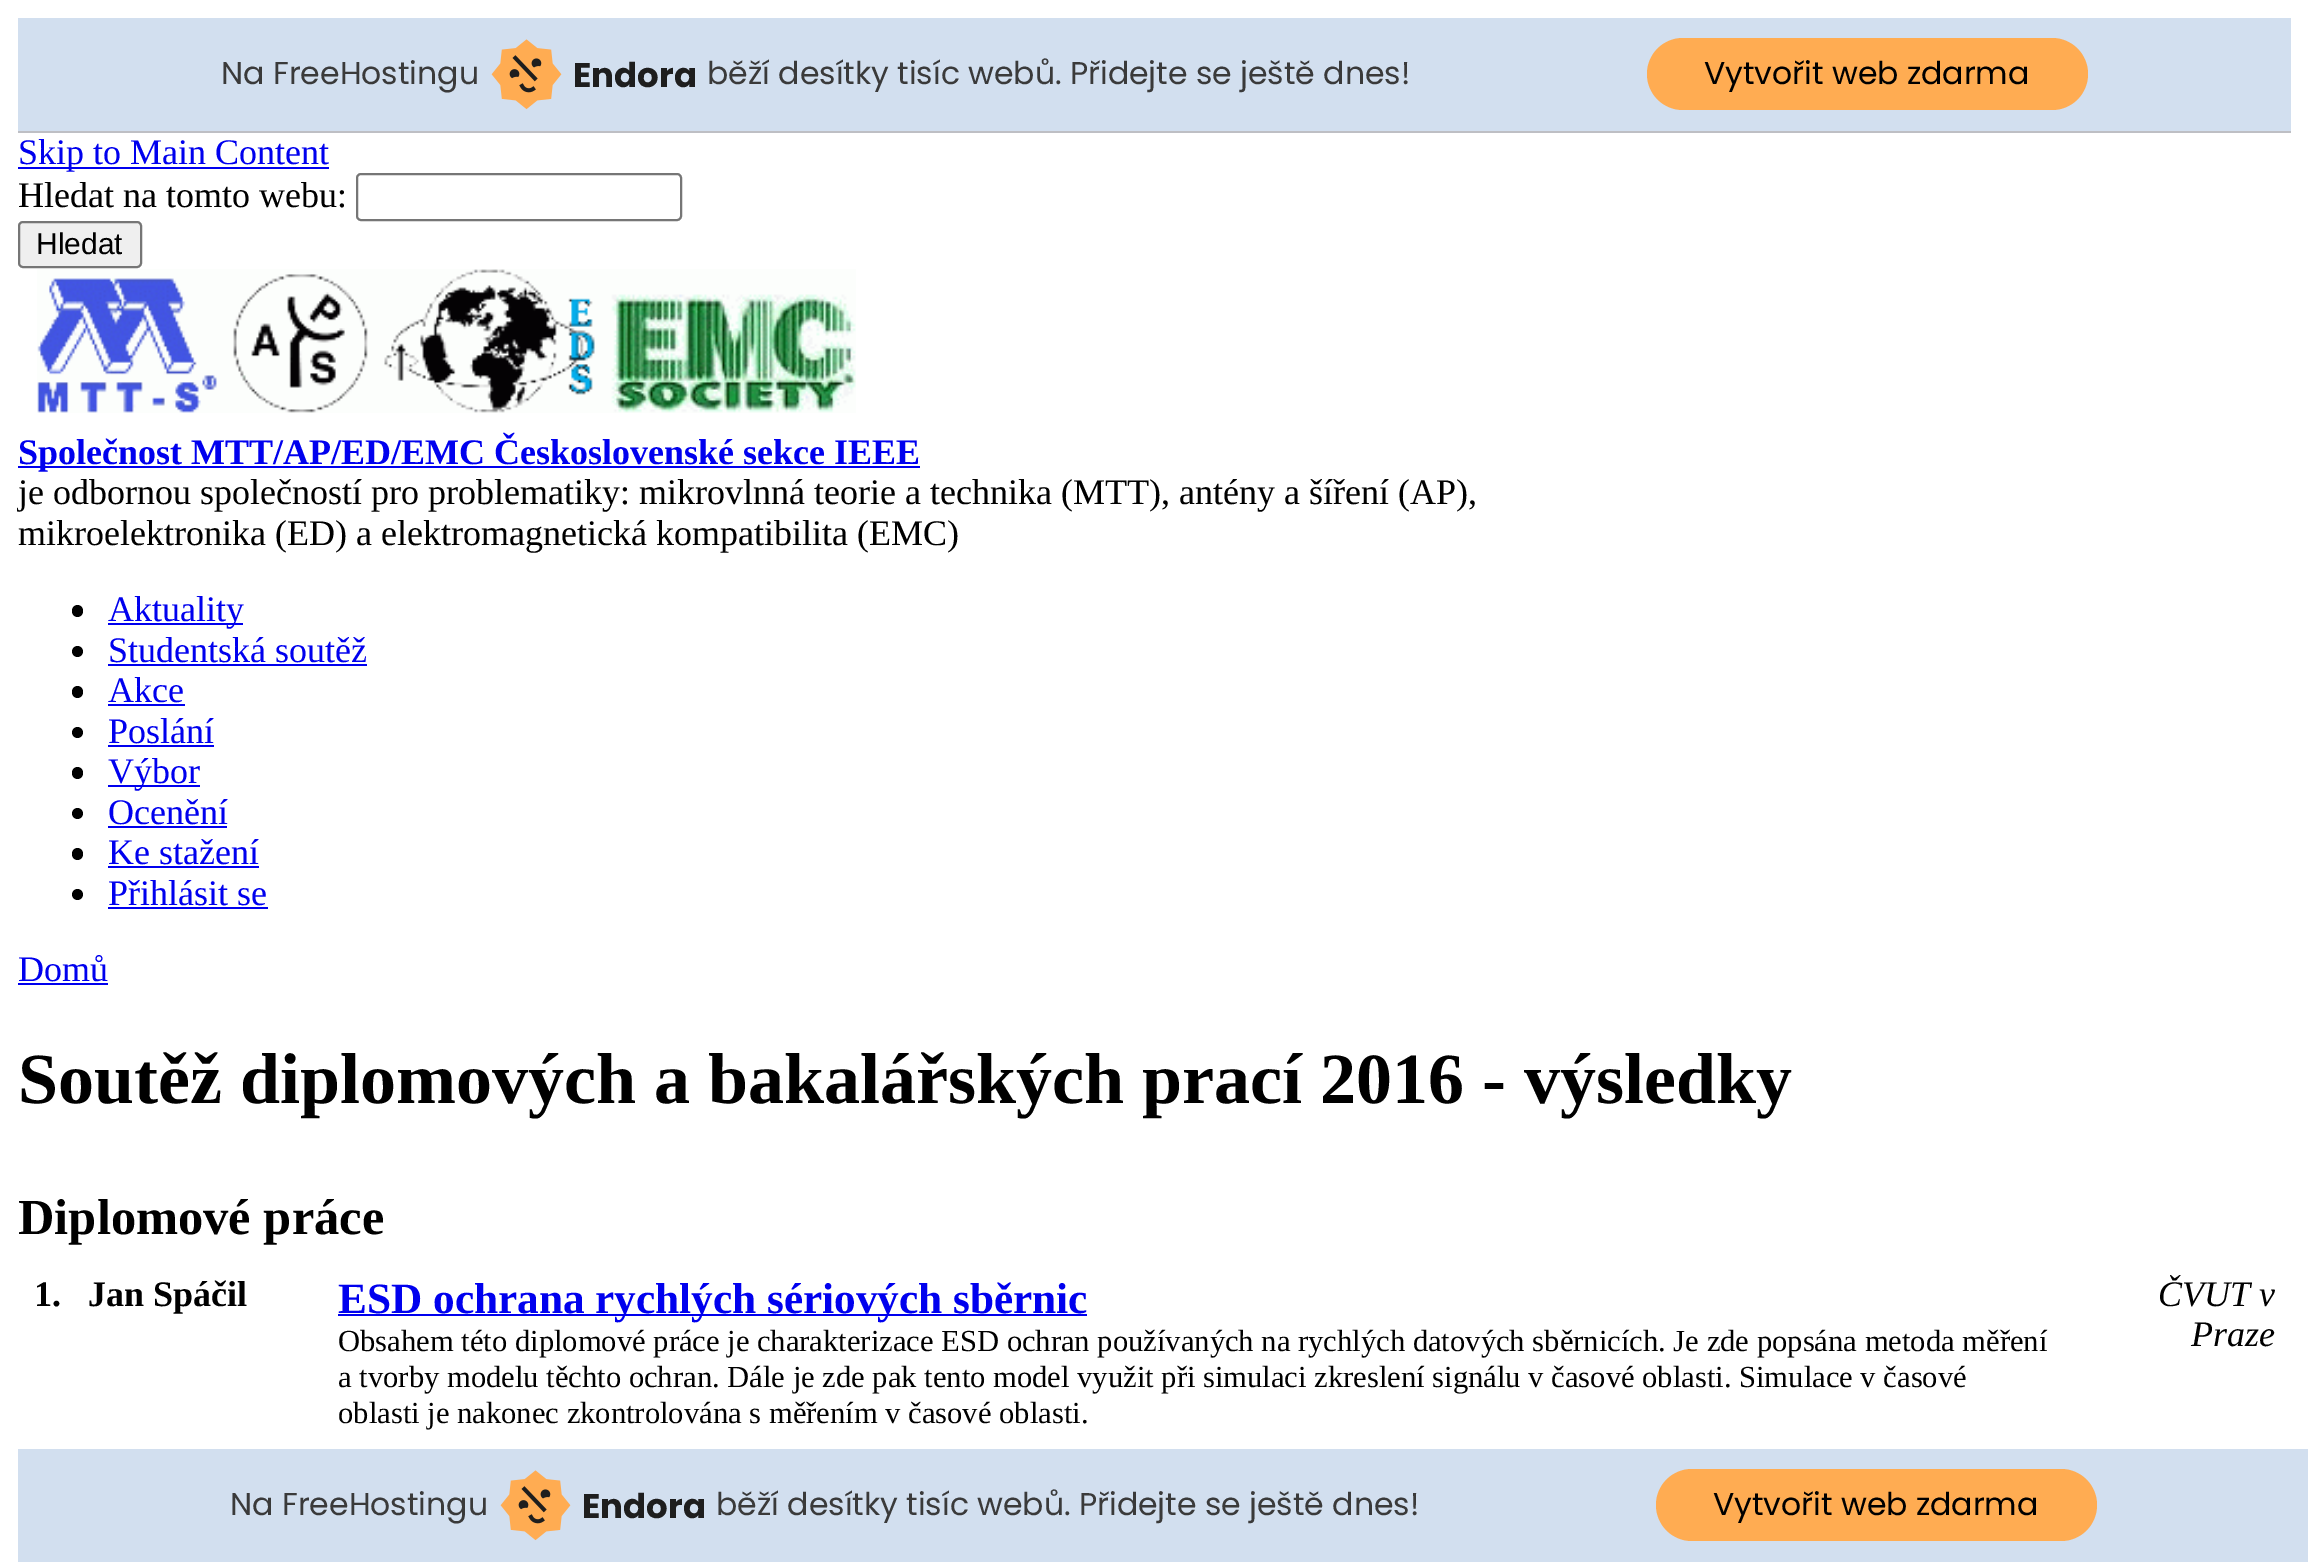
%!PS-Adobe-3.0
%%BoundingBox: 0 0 2308 1562
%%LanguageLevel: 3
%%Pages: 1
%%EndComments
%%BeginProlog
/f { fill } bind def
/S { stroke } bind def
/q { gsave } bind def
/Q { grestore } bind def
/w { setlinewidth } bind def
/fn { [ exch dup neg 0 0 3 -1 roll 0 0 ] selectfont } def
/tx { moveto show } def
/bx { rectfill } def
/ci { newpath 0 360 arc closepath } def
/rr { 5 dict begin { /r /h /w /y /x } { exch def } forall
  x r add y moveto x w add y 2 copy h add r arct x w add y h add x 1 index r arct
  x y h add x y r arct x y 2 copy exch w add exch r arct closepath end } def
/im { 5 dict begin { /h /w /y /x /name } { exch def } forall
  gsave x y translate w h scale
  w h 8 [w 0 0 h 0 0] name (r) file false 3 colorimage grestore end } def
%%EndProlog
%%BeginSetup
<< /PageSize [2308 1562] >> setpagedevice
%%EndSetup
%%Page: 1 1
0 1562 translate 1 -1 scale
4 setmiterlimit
1 setgray
0 0 2308 1562 bx
0.824 0.875 0.937 setrgbcolor
18 18 2273 113 bx
0.745 0.749 0.769 setrgbcolor
18 131 2273 2 bx
/Poppins-Regular 31.5 fn
0.227 setgray
(Na FreeHostingu) 221 84 tx
(image0.raw) 491 39 71 71 im
/Poppins-Bold 34 fn
0.118 setgray
(Endora) 573 87 tx
/Poppins-Regular 31.5 fn
0.227 setgray
(běží desítky tisíc webů. Přidejte se ještě dnes!) 707 84 tx
1 0.675 0.322 setrgbcolor
1647 38 441 72 36 rr f
0 setgray
(Vytvořit web zdarma) 1704 84 tx
0 0 0.933 setrgbcolor
18 167 311 2 bx
/LiberationSerif-Regular 36 fn
(Skip to Main Content) 18 164 tx
0 setgray
(Hledat na tomto webu:) 18 207 tx
0.463 setgray
2 w
357 174 324 46 4 rr S
0.937 setgray
19 222 122 45 4 rr q f Q
0.463 setgray
S
/LiberationSans-Regular 30 fn
0 setgray
(Hledat) 36 254 tx
(image1.raw) 37 269 819 144 im
0 0 0.933 setrgbcolor
18 466 902 2 bx
/LiberationSerif-Bold 36 fn
(Společnost MTT/AP/ED/EMC Československé sekce IEEE) 18 464 tx
/LiberationSerif-Regular 36 fn
0 setgray
(je odbornou společností pro problematiky: mikrovlnná teorie a technika \(MTT\), antény a šíření \(AP\),) 18 504 tx
(mikroelektronika \(ED\) a elektromagnetická kompatibilita \(EMC\)) 18 545 tx
72 605 11 12 5.5 rr f
0 0 0.933 setrgbcolor
108 623 135 2 bx
(Aktuality) 108 621 tx
0 setgray
77.5 651.5 5.5 ci f
0 0 0.933 setrgbcolor
(Studentská soutěž) 108 662 tx
108 664 259 2 bx
0 setgray
72 686 11 12 5.5 rr f
0 0 0.933 setrgbcolor
(Akce) 108 702 tx
108 704 77 2 bx
0 setgray
77.5 732.5 5.5 ci f
0 0 0.933 setrgbcolor
(Poslání) 108 743 tx
108 745 106 2 bx
0 setgray
72 767 11 12 5.5 rr f
0 0 0.933 setrgbcolor
108 785 92 2 bx
(Výbor) 108 783 tx
0 setgray
77.5 813.5 5.5 ci f
0 0 0.933 setrgbcolor
(Ocenění) 108 824 tx
108 826 119 2 bx
0 setgray
72 848 11 12 5.5 rr f
0 0 0.933 setrgbcolor
(Ke stažení) 108 864 tx
108 866 151 2 bx
0 setgray
77.5 894.5 5.5 ci f
0 0 0.933 setrgbcolor
(Přihlásit se) 108 905 tx
108 907 160 2 bx
(Domů) 18 981 tx
18 983 90 2 bx
/LiberationSerif-Bold 72 fn
0 setgray
(Soutěž diplomových a bakalářských prací 2016 - výsledky) 18 1103 tx
/LiberationSerif-Bold 50.5 fn
(Diplomové práce) 18 1234 tx
/LiberationSerif-Bold 36 fn
(1.) 34 1306 tx
(Jan Spáčil) 88 1306 tx
0 0 0.933 setrgbcolor
338 1314 749 2 bx
/LiberationSerif-Bold 43.25 fn
(ESD ochrana rychlých sériových sběrnic) 338 1313 tx
/LiberationSerif-Regular 30.6 fn
0 setgray
(Obsahem této diplomové práce je charakterizace ESD ochran používaných na rychlých datových sběrnicích. Je zde popsána metoda měření) 338 1351 tx
(a tvorby modelu těchto ochran. Dále je zde pak tento model využit při simulaci zkreslení signálu v časové oblasti. Simulace v časové) 338 1387 tx
(oblasti je nakonec zkontrolována s měřením v časové oblasti.) 338 1423 tx
/LiberationSerif-Italic 36 fn
(ČVUT v) 2158 1306 tx
(Praze) 2191 1346 tx
0.824 0.875 0.937 setrgbcolor
18 1449 2290 113 bx
/Poppins-Regular 31.5 fn
0.227 setgray
(Na FreeHostingu) 230 1515 tx
(image0.raw) 500 1470 71 71 im
/Poppins-Bold 34 fn
0.118 setgray
(Endora) 582 1518 tx
/Poppins-Regular 31.5 fn
0.227 setgray
(běží desítky tisíc webů. Přidejte se ještě dnes!) 716 1515 tx
1 0.675 0.322 setrgbcolor
1656 1469 441 72 36 rr f
0 setgray
(Vytvořit web zdarma) 1713 1515 tx
showpage
%%EOF
